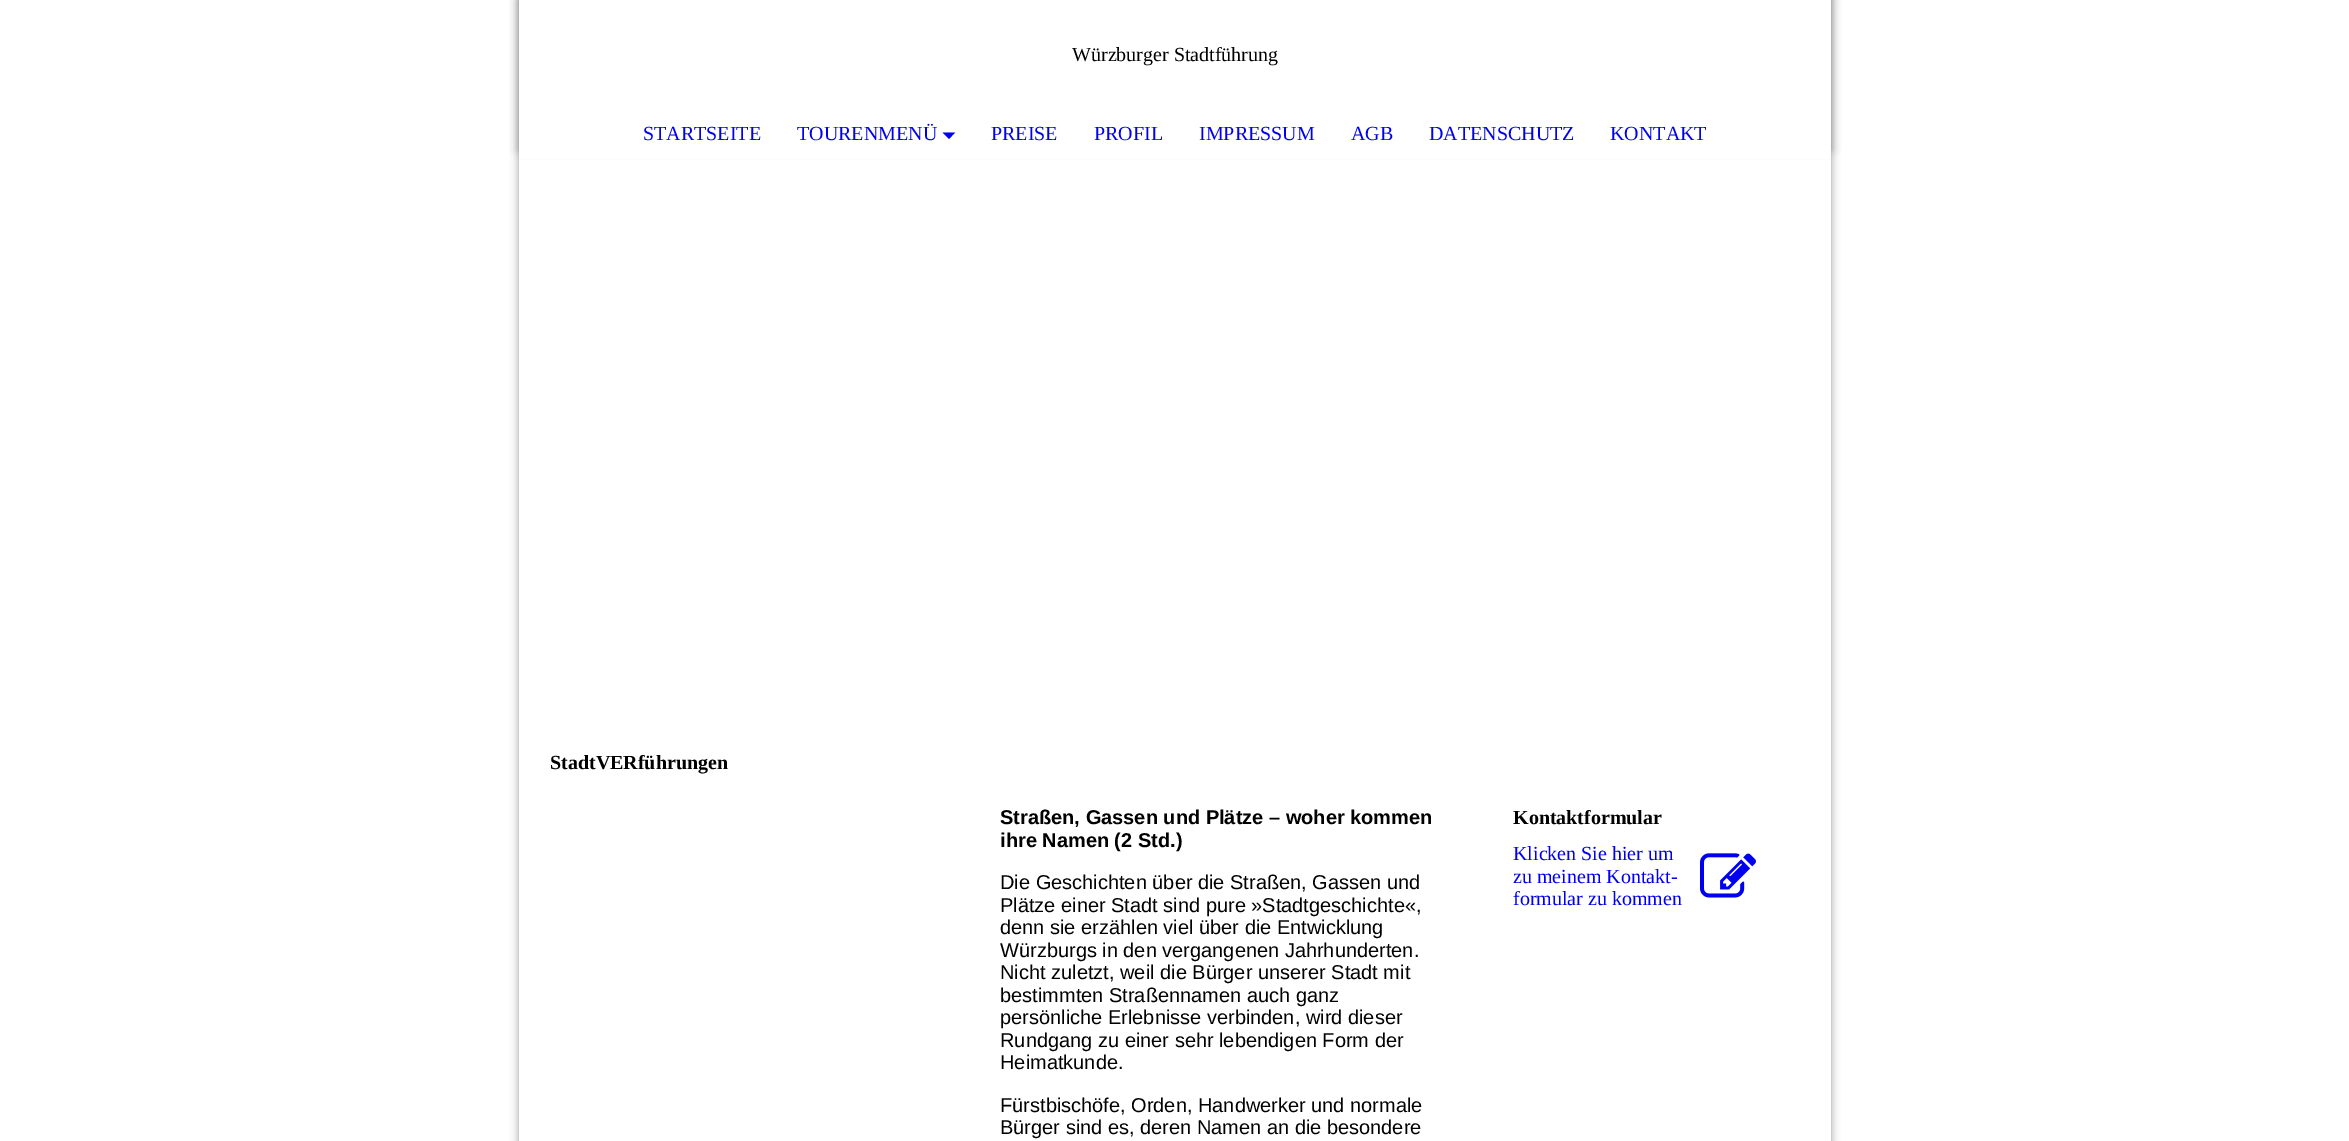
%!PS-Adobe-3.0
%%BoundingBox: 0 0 2349 1141
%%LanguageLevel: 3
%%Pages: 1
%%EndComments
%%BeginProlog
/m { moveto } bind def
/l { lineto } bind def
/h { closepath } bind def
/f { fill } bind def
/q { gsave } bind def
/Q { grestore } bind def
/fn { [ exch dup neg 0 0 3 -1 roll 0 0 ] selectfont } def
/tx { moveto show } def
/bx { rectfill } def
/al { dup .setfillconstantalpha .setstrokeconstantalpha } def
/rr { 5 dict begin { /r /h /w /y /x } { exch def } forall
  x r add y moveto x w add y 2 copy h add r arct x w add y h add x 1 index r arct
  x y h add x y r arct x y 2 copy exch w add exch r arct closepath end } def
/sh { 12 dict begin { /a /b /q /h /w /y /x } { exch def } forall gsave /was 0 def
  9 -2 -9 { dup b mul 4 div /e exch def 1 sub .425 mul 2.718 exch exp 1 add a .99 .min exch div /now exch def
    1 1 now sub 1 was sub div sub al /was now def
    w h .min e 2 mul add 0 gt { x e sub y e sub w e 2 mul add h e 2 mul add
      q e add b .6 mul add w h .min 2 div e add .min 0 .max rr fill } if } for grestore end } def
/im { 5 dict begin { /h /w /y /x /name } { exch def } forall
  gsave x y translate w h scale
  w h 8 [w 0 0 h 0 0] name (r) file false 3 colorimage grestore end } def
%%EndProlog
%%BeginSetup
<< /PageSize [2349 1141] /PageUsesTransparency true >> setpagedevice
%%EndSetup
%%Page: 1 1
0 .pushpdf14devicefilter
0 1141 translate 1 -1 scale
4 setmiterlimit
1 setgray
0 0 2349 1141 bx
q
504 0 m 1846 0 l 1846 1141 l 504 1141 l h 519 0 m 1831 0 l 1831 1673 l 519 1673 l h eoclip newpath
0.6 setgray
519 0 1312 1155 0 4.5 1 sh
Q
q
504 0 m 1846 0 l 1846 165 l 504 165 l h 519 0 m 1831 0 l 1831 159 l 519 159 l h eoclip newpath
0.6 setgray
519 -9 1312 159 0 4.5 1 sh
Q
/LiberationSerif-Regular 20 fn
0 setgray
(Würzburger Stadtführung) 1072 61 tx
0 0 0.933 setrgbcolor
(STARTSEITE) 643 140 tx
(TOURENMENÜ) 797 140 tx
942.5 132.5 m 955 132.5 l 949 139 l h f
(PREISE) 991 140 tx
(PROFIL) 1094 140 tx
(IMPRESSUM) 1199 140 tx
(AGB) 1351 140 tx
(DATENSCHUTZ) 1429 140 tx
(KONTAKT) 1610 140 tx
/LiberationSerif-Bold 20 fn
0 setgray
(StadtVERführungen) 550 769 tx
/LiberationSans-Bold 20 fn
(Straßen, Gassen und Plätze – woher kommen) 1000 824 tx
(ihre Namen \(2 Std.\)) 1000 847 tx
/LiberationSans-Regular 20 fn
(Die Geschichten über die Straßen, Gassen und) 1000 889 tx
(Plätze einer Stadt sind pure »Stadtgeschichte«,) 1000 912 tx
(denn sie erzählen viel über die Entwicklung) 1000 934 tx
(Würzburgs in den vergangenen Jahrhunderten.) 1000 957 tx
(Nicht zuletzt, weil die Bürger unserer Stadt mit) 1000 979 tx
(bestimmten Straßennamen auch ganz) 1000 1002 tx
(persönliche Erlebnisse verbinden, wird dieser) 1000 1024 tx
(Rundgang zu einer sehr lebendigen Form der) 1000 1047 tx
(Heimatkunde.) 1000 1069 tx
(Fürstbischöfe, Orden, Handwerker und normale) 1000 1112 tx
(Bürger sind es, deren Namen an die besondere) 1000 1134 tx
/LiberationSerif-Bold 20 fn
(Kontaktformular) 1513 824 tx
/LiberationSerif-Regular 20 fn
0 0 0.933 setrgbcolor
(Klicken Sie hier um) 1513 860 tx
(zu meinem Kontakt-) 1513 883 tx
(formular zu kommen) 1513 905 tx
(image0.raw) 1700 853 56 45 im
.poppdf14devicefilter showpage
%%EOF
